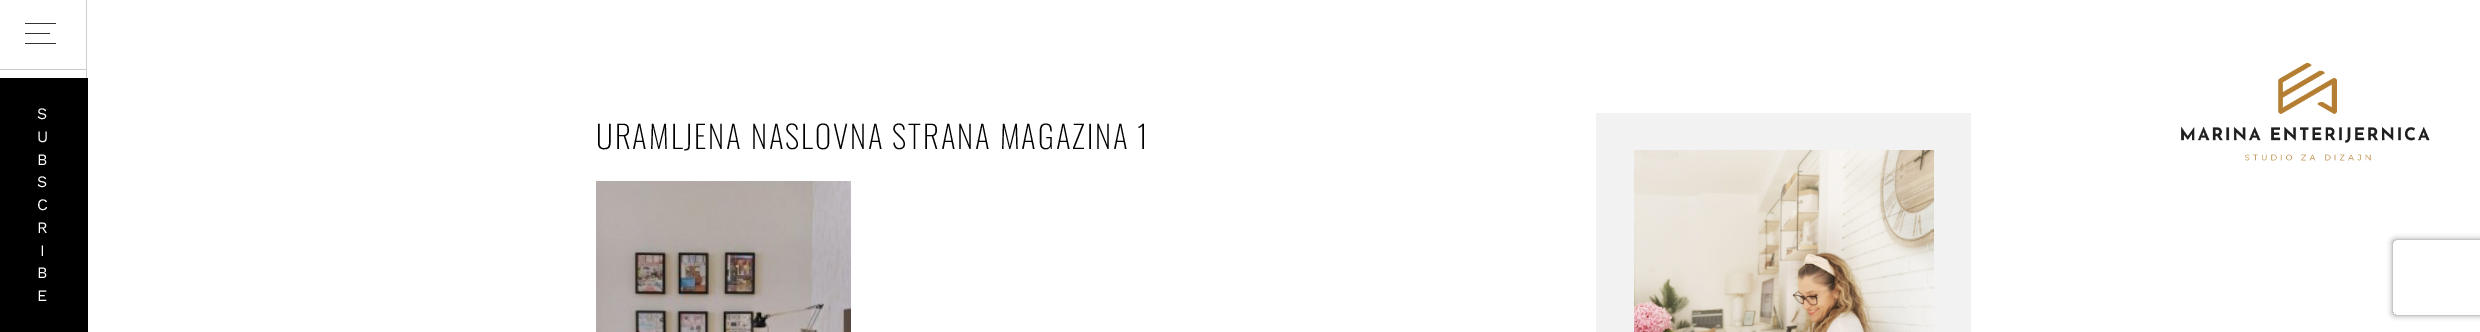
%!PS-Adobe-3.0
%%BoundingBox: 0 0 2480 332
%%LanguageLevel: 3
%%Pages: 1
%%EndComments
%%BeginProlog
/m { moveto } bind def
/l { lineto } bind def
/c { curveto } bind def
/h { closepath } bind def
/q { gsave } bind def
/Q { grestore } bind def
/fn { [ exch dup neg 0 0 3 -1 roll 0 0 ] selectfont } def
/bx { rectfill } def
/al { dup .setfillconstantalpha .setstrokeconstantalpha } def
/rr { 5 dict begin { /r /h /w /y /x } { exch def } forall
  x r add y moveto x w add y 2 copy h add r arct x w add y h add x 1 index r arct
  x y h add x y r arct x y 2 copy exch w add exch r arct closepath end } def
/sh { 12 dict begin { /a /b /q /h /w /y /x } { exch def } forall gsave /was 0 def
  9 -2 -9 { dup b mul 4 div /e exch def 1 sub .425 mul 2.718 exch exp 1 add a .99 .min exch div /now exch def
    1 1 now sub 1 was sub div sub al /was now def
    w h .min e 2 mul add 0 gt { x e sub y e sub w e 2 mul add h e 2 mul add
      q e add b .6 mul add w h .min 2 div e add .min 0 .max rr fill } if } for grestore end } def
/im { 5 dict begin { /h /w /y /x /name } { exch def } forall
  gsave x y translate w h scale
  w h 8 [w 0 0 h 0 0] name (r) file false 3 colorimage grestore end } def
%%EndProlog
%%BeginSetup
<< /PageSize [2480 332] /PageUsesTransparency true >> setpagedevice
%%EndSetup
%%Page: 1 1
0 .pushpdf14devicefilter
0 332 translate 1 -1 scale
4 setmiterlimit
1 setgray
0 0 2480 332 bx
0.8 setgray
86 0 1 78 bx
0 69 86 1 bx
0.2 setgray
25 23 31 1 bx
25 33 25 1 bx
25 43 31 1 bx
0 setgray
0 78 88 254 bx
/WorkSans-Regular 16 fn
1 setgray
37 119 m 2 0 (S) ashow
37 142 m 2 0 (U) ashow
37 165 m 2 0 (B) ashow
37 187 m 2 0 (S) ashow
37 210 m 2 0 (C) ashow
37 233 m 2 0 (R) ashow
40 256 m 2 0 (I) ashow
37 278 m 2 0 (B) ashow
37 301 m 2 0 (E) ashow
/Oswald-ExtraLight 31.25 fn
0 setgray
596 149 m 1.9 0 (URAMLJENA NASLOVNA STRANA MAGAZINA 1) ashow
(image0.raw) 596 181 255 151 im
0.949 setgray
1596 113 375 219 bx
(image1.raw) 1634 150 300 182 im
(image2.raw) 2181 62 249 99 im
q
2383 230 m 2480 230 l 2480 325 l 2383 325 l h 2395.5 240 m 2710.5 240 l 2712 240 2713 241 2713 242.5 c 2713 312.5 l 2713 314 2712 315 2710.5 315 c 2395.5 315 l 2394 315 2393 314 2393 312.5 c 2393 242.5 l 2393 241 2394 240 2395.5 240 c h eoclip newpath
0.502 setgray
2393 240 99 75 2.5 3 1 sh
Q
.poppdf14devicefilter showpage
%%EOF
